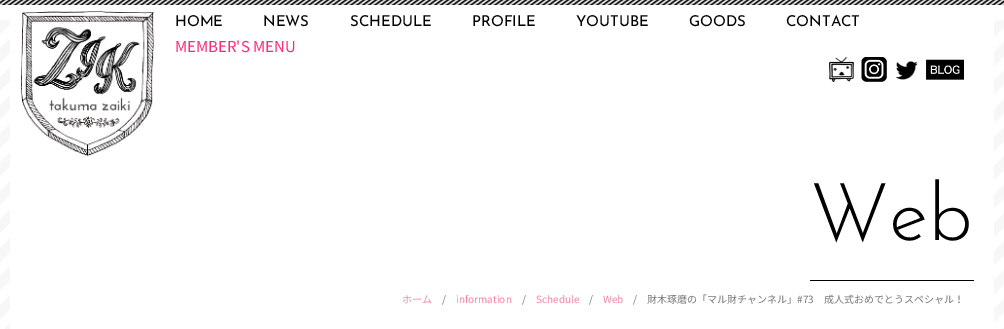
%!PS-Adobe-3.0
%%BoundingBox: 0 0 1004 329
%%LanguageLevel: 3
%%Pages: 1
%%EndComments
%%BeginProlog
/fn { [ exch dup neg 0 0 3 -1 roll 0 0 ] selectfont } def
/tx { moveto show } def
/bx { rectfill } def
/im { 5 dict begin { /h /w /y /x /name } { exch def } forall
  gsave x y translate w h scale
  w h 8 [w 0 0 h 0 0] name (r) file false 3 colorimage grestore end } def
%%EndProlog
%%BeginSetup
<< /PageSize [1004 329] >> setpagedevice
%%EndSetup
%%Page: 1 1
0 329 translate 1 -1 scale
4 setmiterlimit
1 setgray
0 0 1004 329 bx
(image0.raw) 0 0 1004 5 im
(image6.raw) 0 20 1004 309 im
10 20 984 309 bx
(image1.raw) 20 11 135 146 im
/JosefinSans-Thin 15 fn
0 setgray
(HOME) 175 26 tx
(NEWS) 263 26 tx
(SCHEDULE) 350 26 tx
(PROFILE) 472 26 tx
(YOUTUBE) 576 26 tx
(GOODS) 689 26 tx
(CONTACT) 786 26 tx
/NotoSansJP-Regular 15 fn
1 0.157 0.482 setrgbcolor
(MEMBER'S MENU) 175 52 tx
(image2.raw) 829 57 25 25 im
(image3.raw) 861 57 26 25 im
(image4.raw) 896 61 22 19 im
(image5.raw) 926 59 38 21 im
0 setgray
810 280 164 1 bx
/JosefinSans-Light 80 fn
(Web) 810 240 tx
/NotoSansJP-Regular 10 fn
0.945 0.525 0.643 setrgbcolor
(ホーム) 402 303 tx
0.467 setgray
(/) 442 303 tx
0.945 0.525 0.643 setrgbcolor
(information) 456 303 tx
0.467 setgray
(/) 522 303 tx
0.945 0.525 0.643 setrgbcolor
(Schedule) 536 303 tx
0.467 setgray
(/) 589 303 tx
0.945 0.525 0.643 setrgbcolor
(Web) 603 303 tx
0.467 setgray
(/) 633 303 tx
(財木琢磨の「マル財チャンネル」#73　成人式おめでとうスペシャル！) 647 303 tx
showpage
%%EOF
